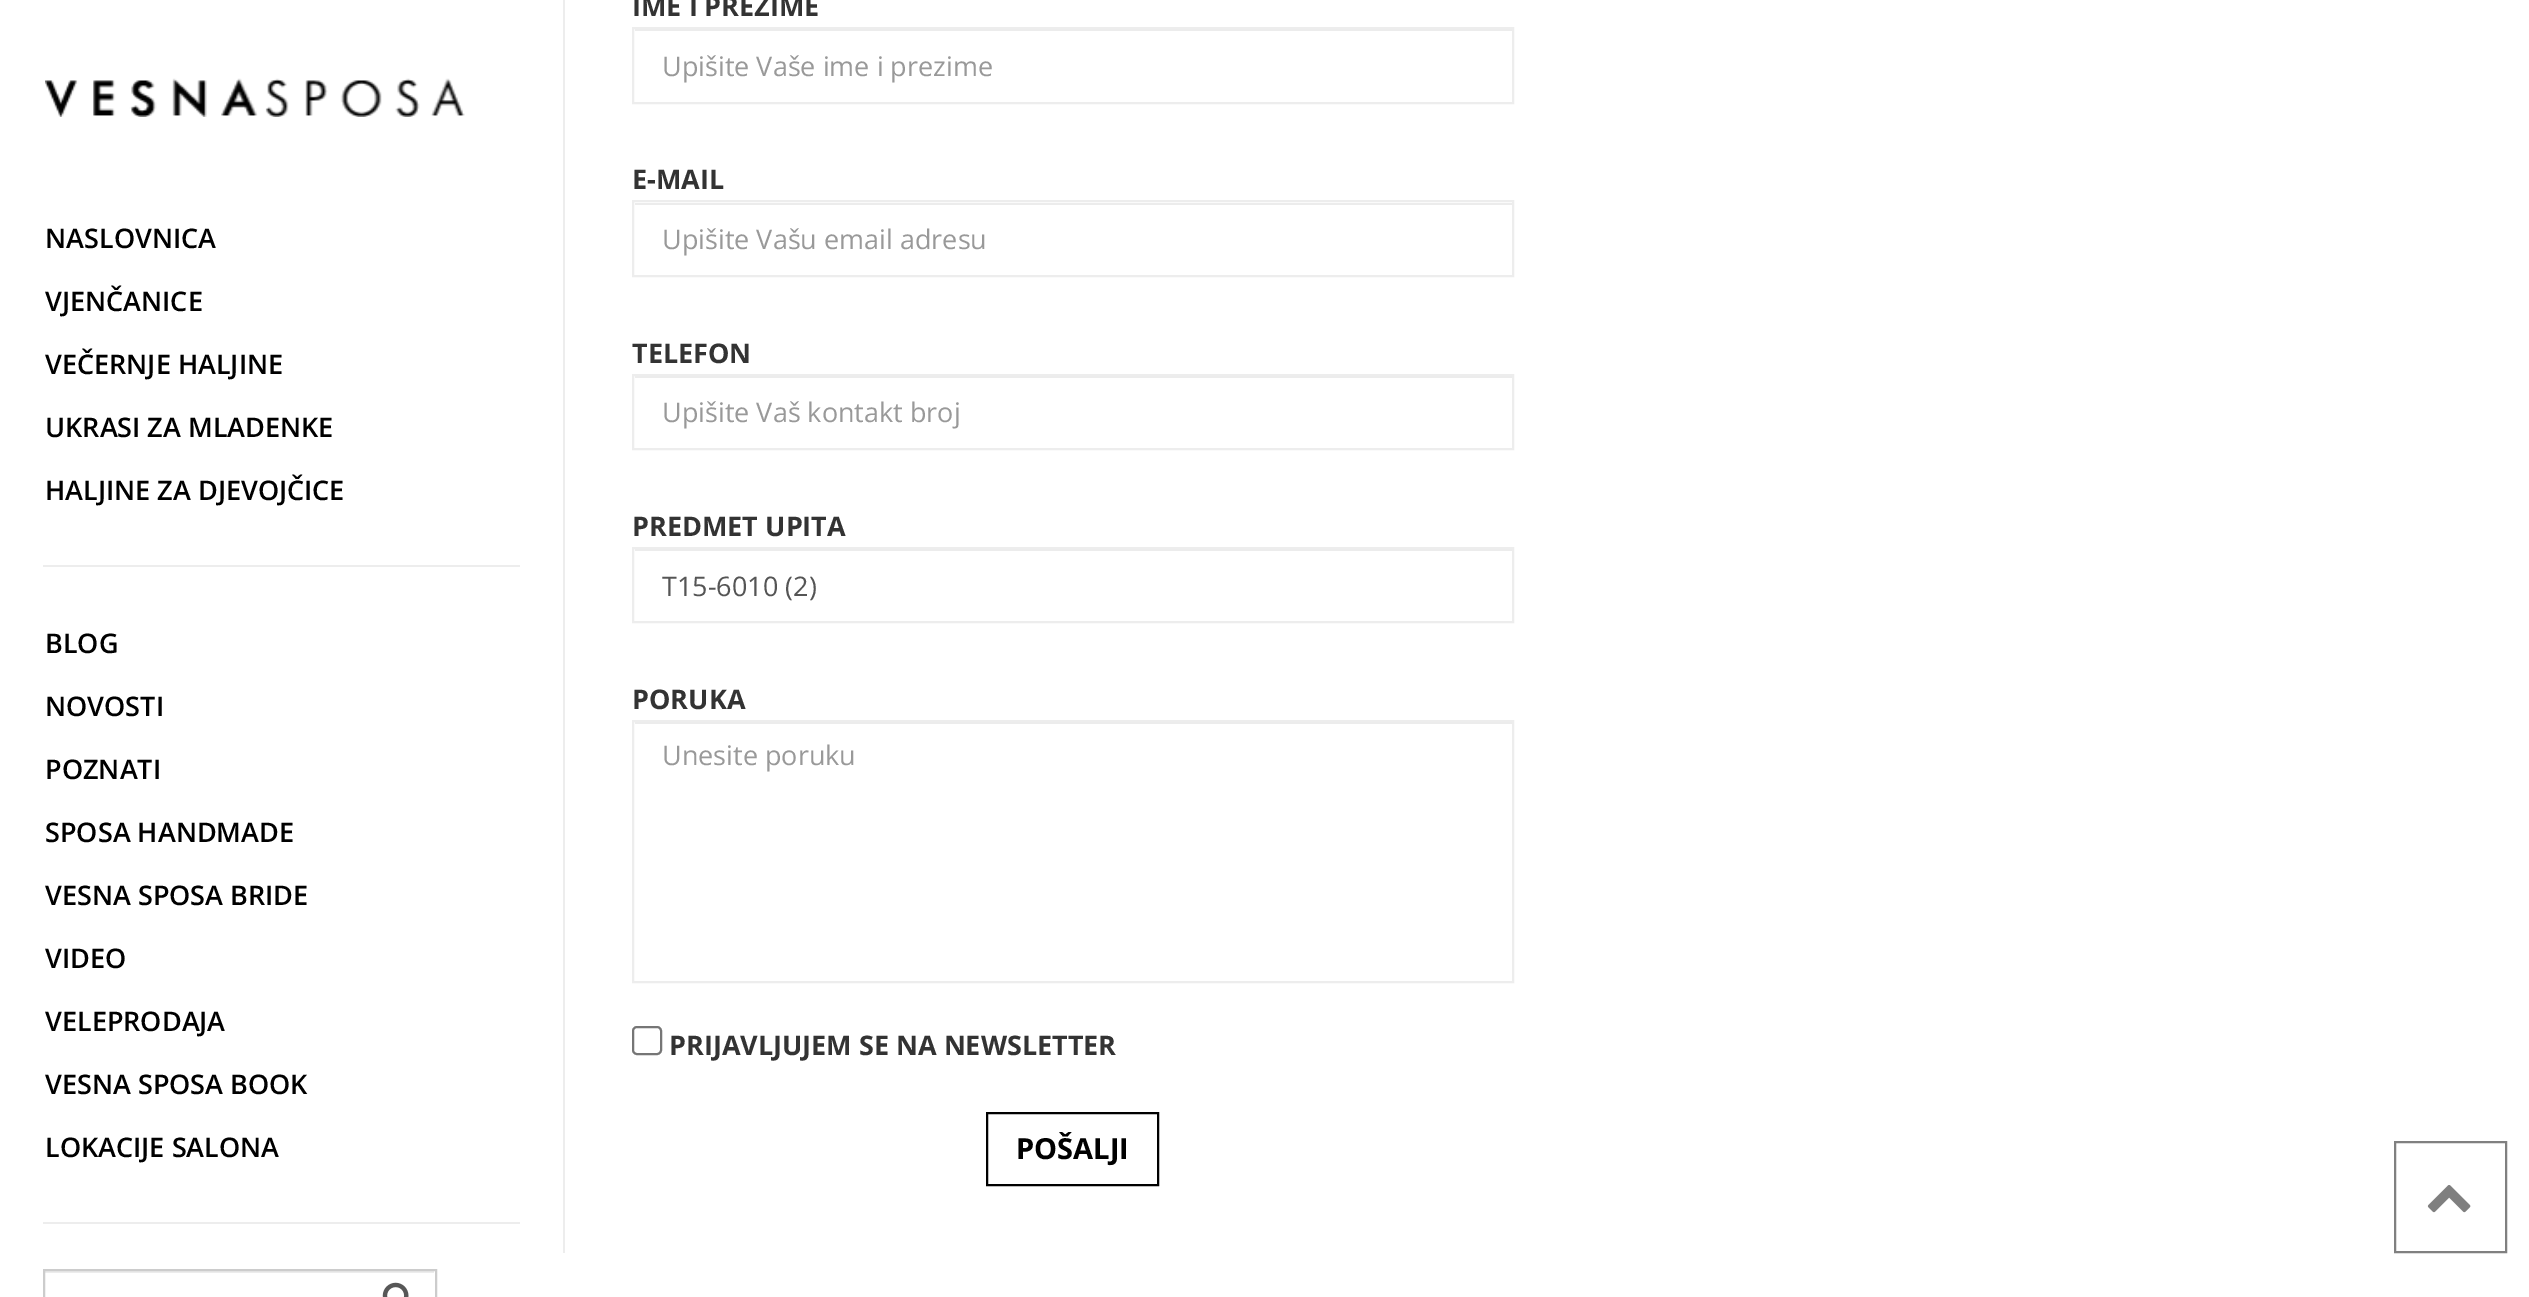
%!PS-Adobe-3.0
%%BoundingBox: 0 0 2529 1297
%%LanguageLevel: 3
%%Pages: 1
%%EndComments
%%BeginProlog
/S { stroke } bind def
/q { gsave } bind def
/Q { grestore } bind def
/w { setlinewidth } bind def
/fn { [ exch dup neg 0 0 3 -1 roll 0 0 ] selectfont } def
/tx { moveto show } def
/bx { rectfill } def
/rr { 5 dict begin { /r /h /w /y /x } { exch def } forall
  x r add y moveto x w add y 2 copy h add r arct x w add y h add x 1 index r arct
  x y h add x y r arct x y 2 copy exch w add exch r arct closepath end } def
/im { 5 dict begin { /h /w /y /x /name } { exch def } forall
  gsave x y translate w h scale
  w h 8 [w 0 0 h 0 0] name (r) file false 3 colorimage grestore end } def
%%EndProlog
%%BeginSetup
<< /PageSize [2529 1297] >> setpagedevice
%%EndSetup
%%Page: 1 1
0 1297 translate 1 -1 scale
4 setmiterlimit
1 setgray
0 0 2529 1297 bx
(image0.raw) 45 78 420 39 im
/OpenSans-SemiBold 27 fn
0 setgray
(NASLOVNICA) 45 248 tx
(VJENČANICE) 45 311 tx
(VEČERNJE HALJINE) 45 374 tx
(UKRASI ZA MLADENKE) 45 437 tx
(HALJINE ZA DJEVOJČICE) 45 500 tx
0.929 setgray
43 565 477 2 bx
0 setgray
(BLOG) 45 653 tx
(NOVOSTI) 45 716 tx
(POZNATI) 45 779 tx
(SPOSA HANDMADE) 45 842 tx
(VESNA SPOSA BRIDE) 45 905 tx
(VIDEO) 45 968 tx
(VELEPRODAJA) 45 1031 tx
(VESNA SPOSA BOOK) 45 1094 tx
(LOKACIJE SALONA) 45 1157 tx
0.929 setgray
43 1222 477 2 bx
0.925 setgray
45 1271 389 2 bx
0.8 setgray
2 w
44 1270 392 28 rectstroke
(image1.raw) 382 1282 27 15 im
0.929 setgray
563 0 2 1253 bx
/OpenSans-Bold 27 fn
0.2 setgray
(IME I PREZIME) 632 16 tx
0.925 setgray
635 29 877 2 bx
0.929 setgray
633 28 880 75 rectstroke
/OpenSans-Regular 27 fn
0.6 setgray
(Upišite Vaše ime i prezime) 662 76 tx
/OpenSans-Bold 27 fn
0.2 setgray
(E-MAIL) 632 189 tx
0.925 setgray
635 203 877 2 bx
0.929 setgray
633 201 880 75 rectstroke
/OpenSans-Regular 27 fn
0.6 setgray
(Upišite Vašu email adresu) 662 249 tx
/OpenSans-Bold 27 fn
0.2 setgray
(TELEFON) 632 363 tx
0.925 setgray
635 376 877 2 bx
0.929 setgray
633 375 880 74 rectstroke
/OpenSans-Regular 27 fn
0.6 setgray
(Upišite Vaš kontakt broj) 662 422 tx
/OpenSans-Bold 27 fn
0.2 setgray
(PREDMET UPITA) 632 536 tx
0.925 setgray
635 549 877 2 bx
0.929 setgray
633 548 880 74 rectstroke
q
662 567 823 38 rectclip
/OpenSans-Regular 27 fn
0.333 setgray
(T15-6010 \(2\)) 662 596 tx
Q
0.2 setgray
(PORUKA) 632 709 tx
0.925 setgray
635 722 877 2 bx
0.929 setgray
633 721 880 261 rectstroke
/OpenSans-Regular 27 fn
0.6 setgray
(Unesite poruku) 662 765 tx
0.463 setgray
633 1027 28 27 4 rr S
/OpenSans-Bold 27 fn
0.2 setgray
(PRIJAVLJUJEM SE NA NEWSLETTER) 669 1055 tx
0 setgray
987 1113 171 72 rectstroke
/OpenSans-Bold 29 fn
(POŠALJI) 1016 1159 tx
0.502 setgray
2395 1142 111 110 rectstroke
(image2.raw) 2427 1185 44 28 im
showpage
%%EOF
